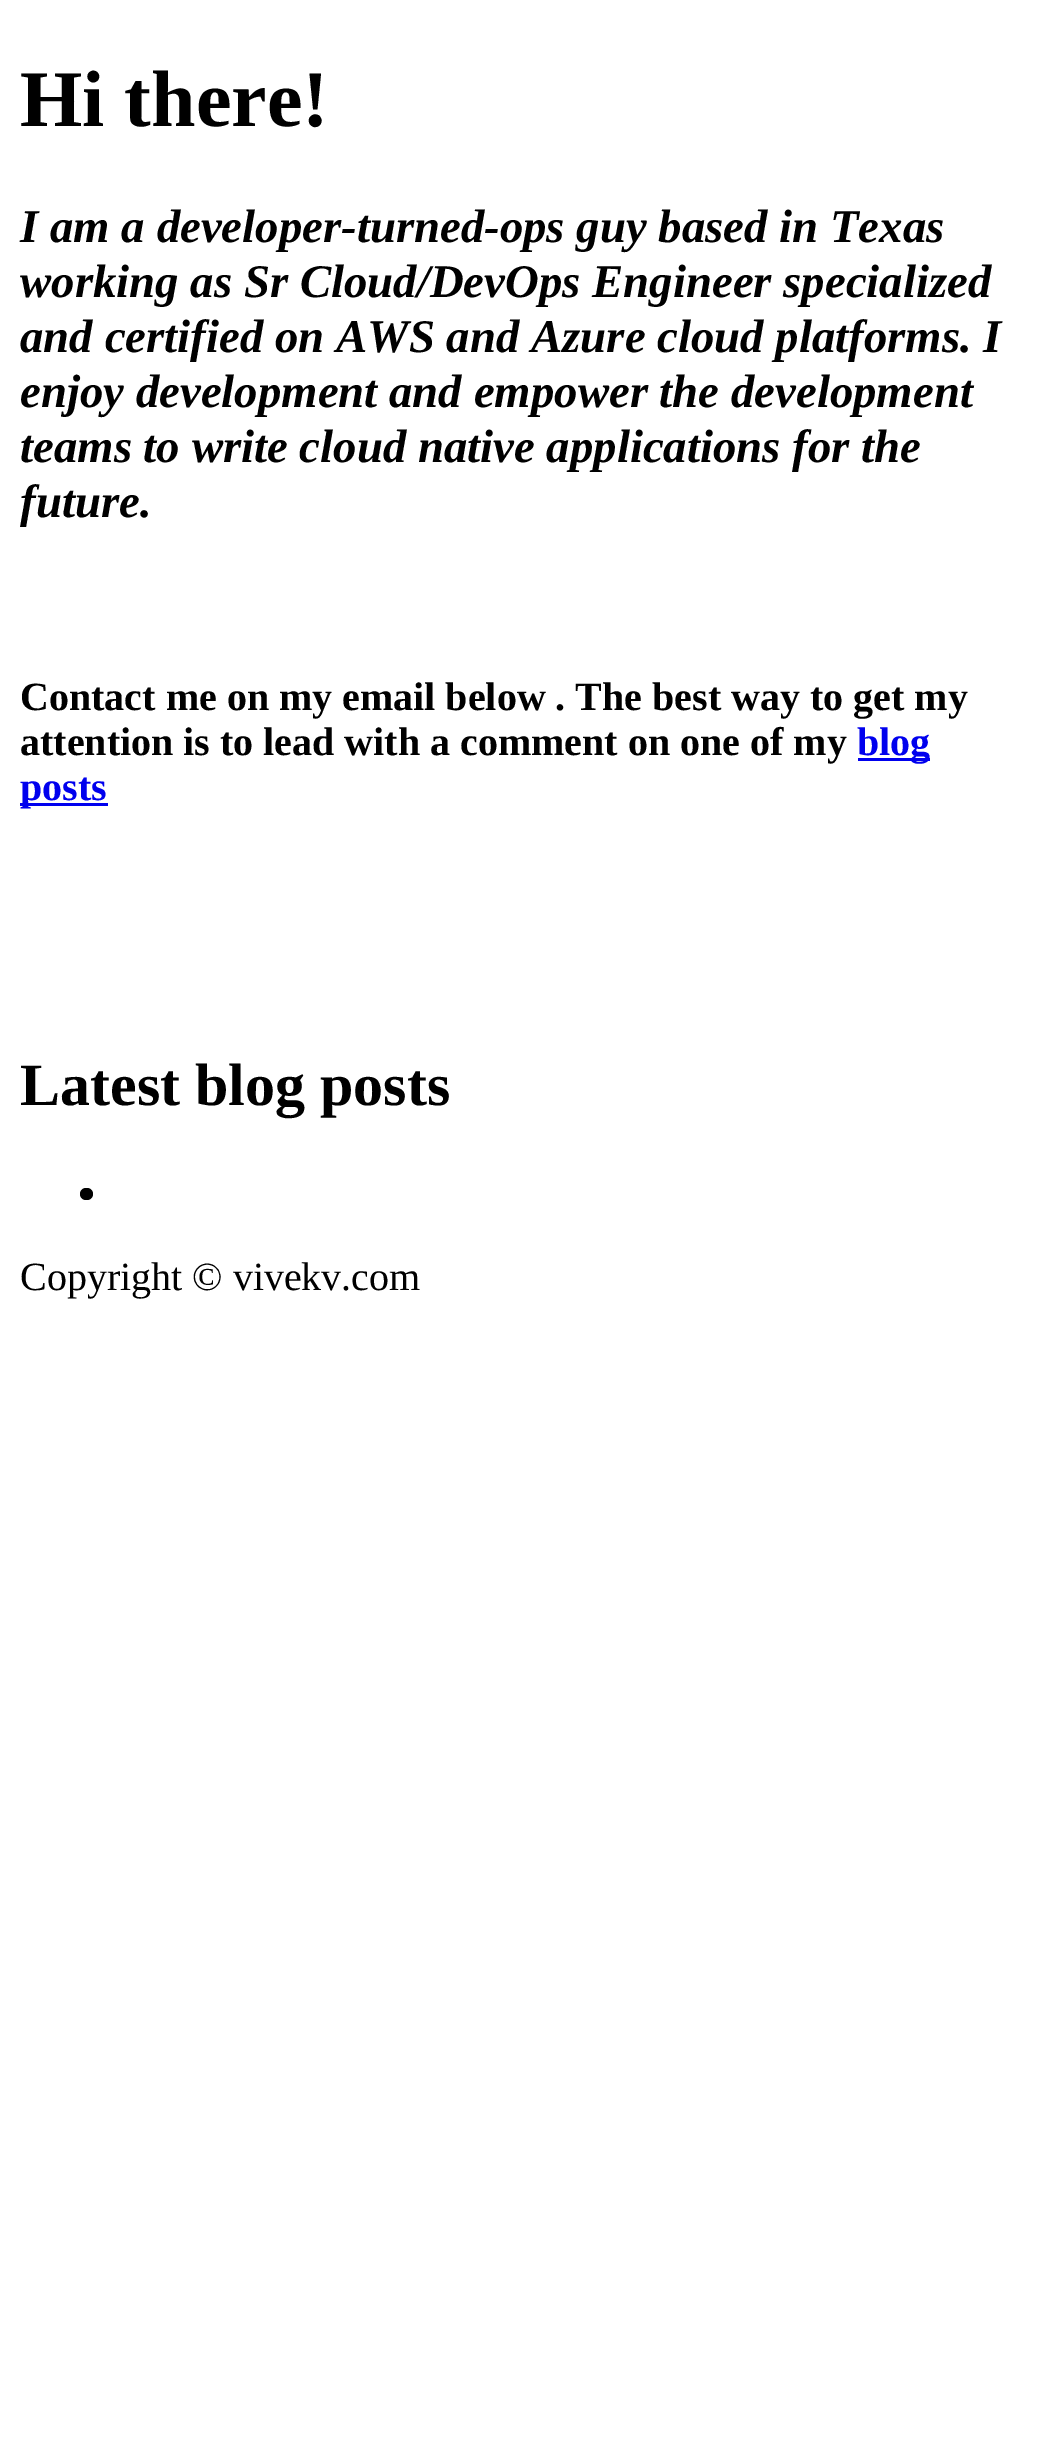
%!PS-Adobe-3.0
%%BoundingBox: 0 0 1043 2461
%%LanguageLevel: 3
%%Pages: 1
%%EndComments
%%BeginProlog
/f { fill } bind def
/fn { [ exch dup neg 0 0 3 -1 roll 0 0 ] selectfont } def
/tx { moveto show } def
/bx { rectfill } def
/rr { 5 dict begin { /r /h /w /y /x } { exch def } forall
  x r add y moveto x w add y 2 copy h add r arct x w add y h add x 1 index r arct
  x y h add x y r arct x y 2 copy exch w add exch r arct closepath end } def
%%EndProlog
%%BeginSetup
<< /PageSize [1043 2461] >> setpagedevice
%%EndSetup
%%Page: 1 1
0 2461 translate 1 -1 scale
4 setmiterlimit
1 setgray
0 0 1043 2461 bx
/LiberationSerif-Bold 80 fn
0 setgray
(Hi there!) 20 126 tx
/LiberationSerif-BoldItalic 46.8 fn
(I am a developer-turned-ops guy based in Texas) 20 242 tx
(working as Sr Cloud/DevOps Engineer specialized) 20 297 tx
(and certified on AWS and Azure cloud platforms. I) 20 352 tx
(enjoy development and empower the development) 20 407 tx
(teams to write cloud native applications for the) 20 462 tx
(future.) 20 517 tx
/LiberationSerif-Bold 40 fn
(Contact me on my email below . The best way to get my) 20 710 tx
(attention is to lead with a comment on one of my) 20 755 tx
0 0 0.933 setrgbcolor
858 758 72 3 bx
(blog) 857 755 tx
20 803 88 3 bx
(posts) 20 800 tx
/LiberationSerif-Bold 60 fn
0 setgray
(Latest blog posts) 20 1105 tx
80 1188 13 12 6 rr f
/LiberationSerif-Regular 40 fn
(Copyright © vivekv.com) 20 1290 tx
showpage
%%EOF
